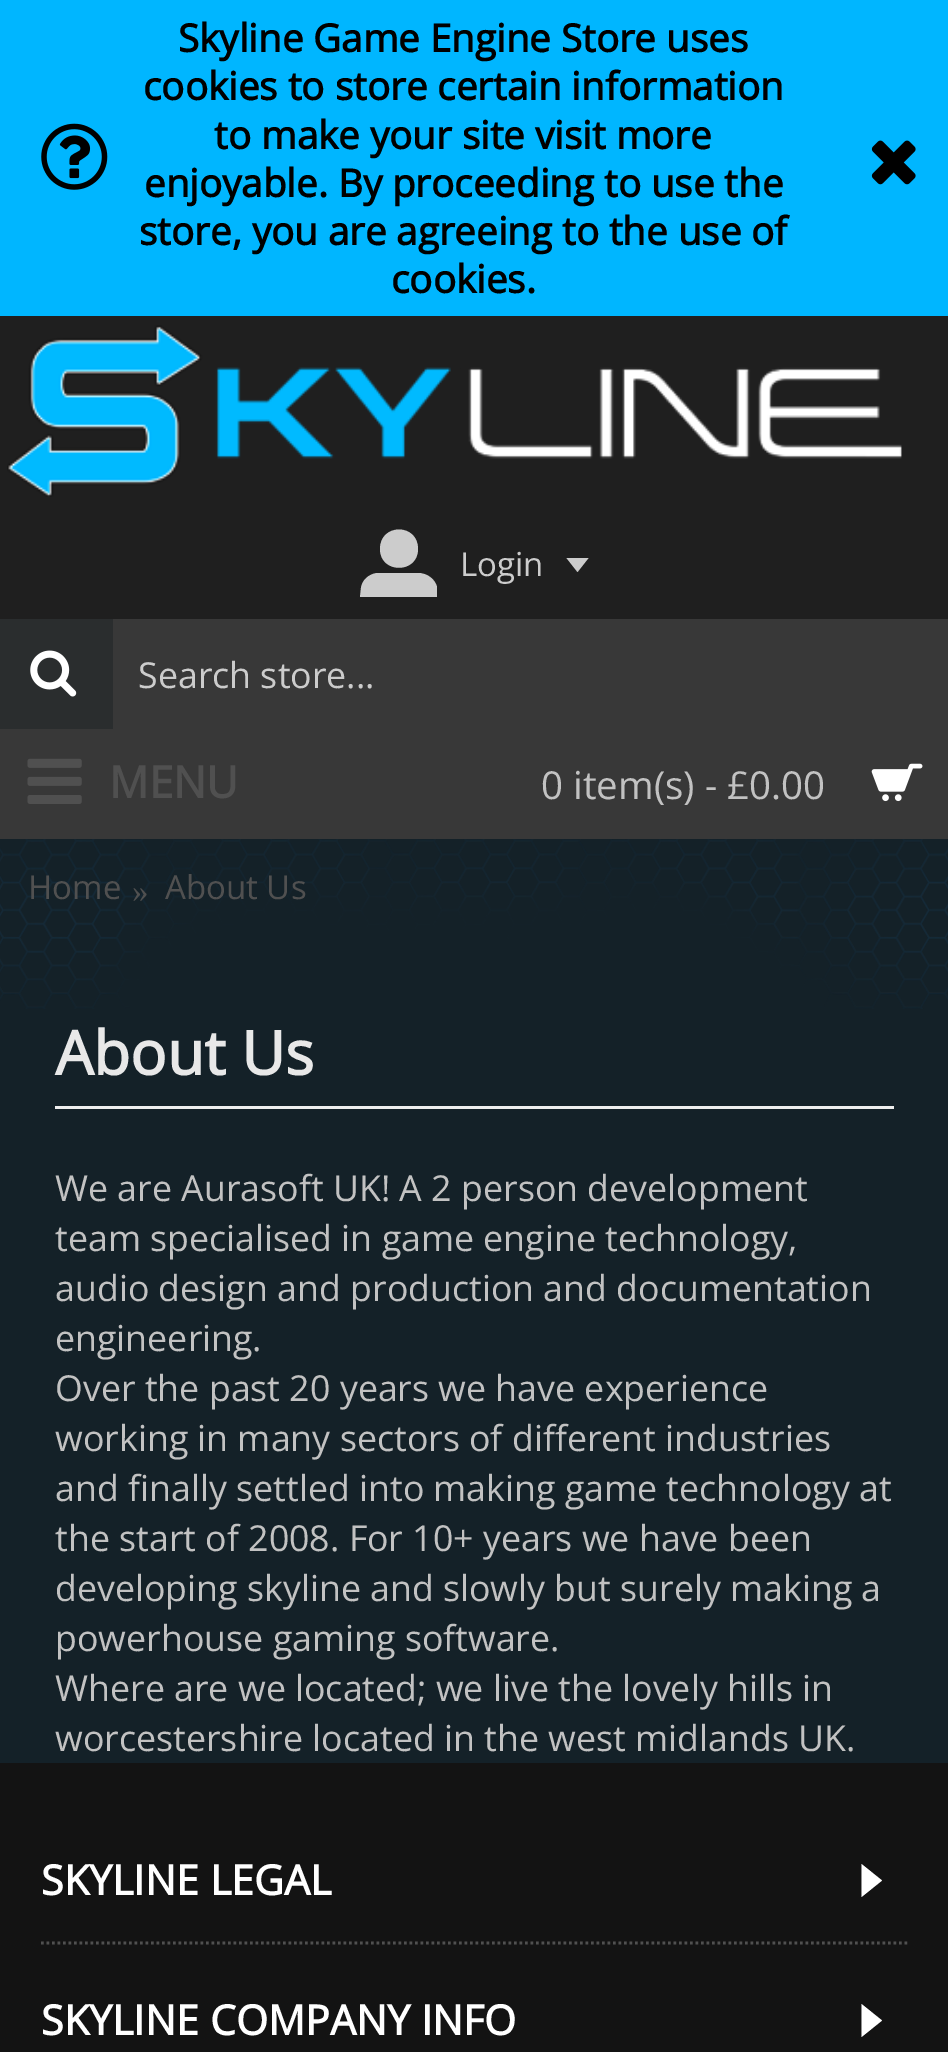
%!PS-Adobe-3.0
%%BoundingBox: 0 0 948 2052
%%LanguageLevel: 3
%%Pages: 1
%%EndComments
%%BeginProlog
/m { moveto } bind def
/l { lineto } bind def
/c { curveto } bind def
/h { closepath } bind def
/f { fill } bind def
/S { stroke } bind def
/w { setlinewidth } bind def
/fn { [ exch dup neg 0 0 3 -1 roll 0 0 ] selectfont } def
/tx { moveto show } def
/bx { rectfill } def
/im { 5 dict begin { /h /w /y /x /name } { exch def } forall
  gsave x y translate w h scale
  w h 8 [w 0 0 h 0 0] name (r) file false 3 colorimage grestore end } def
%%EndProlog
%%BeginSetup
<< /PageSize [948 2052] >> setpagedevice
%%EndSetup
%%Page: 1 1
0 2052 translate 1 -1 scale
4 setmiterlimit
0.075 setgray
0 0 948 2052 bx
0 0.714 1 setrgbcolor
0 0 948 316 bx
(image0.raw) 41 123 67 67 im
/OpenSans-Bold 38.5 fn
0 setgray
(Skyline Game Engine Store uses) 178 52 tx
(cookies to store certain information) 143 100 tx
(to make your site visit more) 214 149 tx
(enjoyable. By proceeding to use the) 144 197 tx
(store, you are agreeing to the use of) 139 245 tx
(cookies.) 391 293 tx
(image1.raw) 871 140 45 45 im
0.122 setgray
0 316 948 303 bx
(image2.raw) 7 325 895 172 im
0.8 setgray
380 549 m 380 574 418 574 418 549 c 418 523 380 523 380 549 c h 418 573 m 377 573 l 369 574 362 580 361 588 c 360 597 l 437 597 l 437 587 l 435 579 427 573 418 573 c h f
/OpenSans-Regular 33 fn
(Login) 460 576 tx
588.5 558 m 566.5 558 l 577.5 572 l h f
0.165 0.176 0.18 setrgbcolor
0 619 113 110 bx
(image3.raw) 30 650 47 47 im
0.22 setgray
113 619 835 110 bx
/OpenSans-Regular 35.75 fn
0.8 setgray
(Search store...) 138 688 tx
0.22 setgray
0 729 948 110 bx
/OpenSans-Regular 38.5 fn
0.761 setgray
(0 item\(s\) - £0.00) 541 799 tx
(image4.raw) 871 763 52 39 im
(image5.raw) 27 758 55 46 im
/OpenSans-Bold 44 fn
0.314 setgray
(MENU) 109 798 tx
0.078 0.129 0.157 setrgbcolor
0 839 948 924 bx
(image6.raw) 0 839 948 170 im
/OpenSans-Regular 33 fn
0.314 setgray
(Home) 28 899 tx
/LiberationSerif-Regular 33 fn
(») 132 902 tx
/OpenSans-Regular 33 fn
(About Us) 165 899 tx
0.933 setgray
55 1106 839 3 bx
/OpenSans-Bold 60.5 fn
0.91 setgray
(About Us) 55 1075 tx
/OpenSans-Regular 35.75 fn
0.761 setgray
(We are Aurasoft UK! A 2 person development) 55 1201 tx
(team specialised in game engine technology,) 55 1251 tx
(audio design and production and documentation) 55 1301 tx
(engineering.) 55 1351 tx
(Over the past 20 years we have experience) 55 1401 tx
(working in many sectors of different industries) 55 1451 tx
(and finally settled into making game technology at) 55 1501 tx
(the start of 2008. For 10+ years we have been) 55 1551 tx
(developing skyline and slowly but surely making a) 55 1601 tx
(powerhouse gaming software.) 55 1651 tx
(Where are we located; we live the lovely hills in) 55 1701 tx
(worcestershire located in the west midlands UK.) 55 1751 tx
0.314 setgray
2.8 w
[2.75 2.75] 0 setdash
41 1943 m 907.5 1943 l S
/OpenSans-Bold 41.25 fn
1 setgray
(SKYLINE LEGAL) 41 1895 tx
861.5 1864 m 861.5 1897 l 882 1880.5 l h f
(SKYLINE COMPANY INFO) 41 2035 tx
861.5 2004 m 861.5 2037 l 882 2020.5 l h f
showpage
%%EOF
